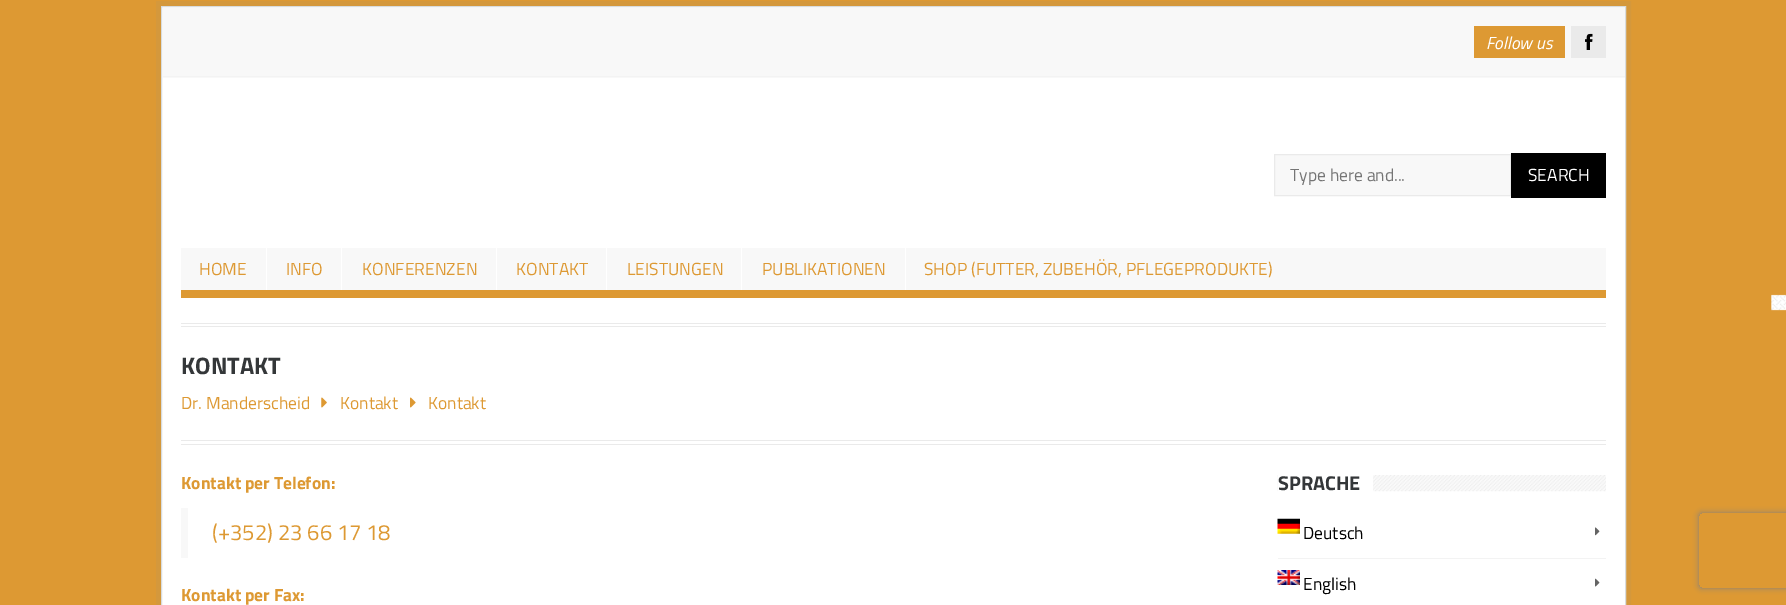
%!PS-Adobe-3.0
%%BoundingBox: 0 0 1786 605
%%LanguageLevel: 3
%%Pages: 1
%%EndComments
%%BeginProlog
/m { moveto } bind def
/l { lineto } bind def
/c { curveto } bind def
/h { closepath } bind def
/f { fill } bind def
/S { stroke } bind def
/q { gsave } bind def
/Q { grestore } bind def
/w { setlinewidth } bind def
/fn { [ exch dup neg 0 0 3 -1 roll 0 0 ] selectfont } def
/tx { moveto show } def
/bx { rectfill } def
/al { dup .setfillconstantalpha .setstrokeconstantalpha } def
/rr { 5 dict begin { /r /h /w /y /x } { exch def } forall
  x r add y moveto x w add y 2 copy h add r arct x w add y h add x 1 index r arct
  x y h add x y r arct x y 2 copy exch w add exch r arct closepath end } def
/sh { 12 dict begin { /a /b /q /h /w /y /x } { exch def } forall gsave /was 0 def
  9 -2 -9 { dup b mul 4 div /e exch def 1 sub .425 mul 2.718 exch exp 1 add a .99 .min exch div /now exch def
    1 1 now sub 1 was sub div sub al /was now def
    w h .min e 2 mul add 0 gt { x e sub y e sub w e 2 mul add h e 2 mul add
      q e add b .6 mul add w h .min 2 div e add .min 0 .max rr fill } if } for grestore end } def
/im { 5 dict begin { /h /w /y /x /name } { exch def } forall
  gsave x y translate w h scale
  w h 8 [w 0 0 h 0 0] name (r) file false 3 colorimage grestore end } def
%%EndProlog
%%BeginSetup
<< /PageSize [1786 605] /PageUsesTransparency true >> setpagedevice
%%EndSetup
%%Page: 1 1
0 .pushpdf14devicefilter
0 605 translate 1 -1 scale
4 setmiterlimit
0.867 0.6 0.2 setrgbcolor
0 0 1786 605 bx
(image0.raw) 1771 294 15 17 im
0.831 0.596 0.235 setrgbcolor
5 w
158.5 3.5 1470 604 rectstroke
1 setgray
161.5 6.5 m 1625.5 6.5 l 1625.5 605.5 l 161.5 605.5 l h q f Q
0.847 0.863 0.871 setrgbcolor
1 w
S
0.973 setgray
163 8 1462 70 bx
0.953 setgray
163 76 1462 1 bx
0.867 0.6 0.2 setrgbcolor
1474 26 91 32 bx
/TitilliumWeb-Italic 17.5 fn
1 setgray
(Follow us) 1486 49 tx
0.918 setgray
1571 26 35 32 bx
(image1.raw) 1585 33 8 17 im
0.973 setgray
1274.5 154.5 m 1510.5 154.5 l 1510.5 195.5 l 1274.5 195.5 l h q f Q
0.918 setgray
S
/TitilliumWeb-Regular 17.5 fn
0.459 setgray
(Type here and...) 1290 181 tx
0 setgray
1511 153 95 45 bx
1 setgray
(SEARCH) 1528 181 tx
0.973 setgray
181 248 1425 42 bx
0.867 0.6 0.2 setrgbcolor
181 290 1425 8 bx
1 setgray
266 248 1 42 bx
0.867 0.6 0.2 setrgbcolor
(HOME) 199 275 tx
1 setgray
341 248 1 42 bx
0.867 0.6 0.2 setrgbcolor
(INFO) 286 275 tx
1 setgray
496 248 1 42 bx
0.867 0.6 0.2 setrgbcolor
(KONFERENZEN) 362 275 tx
1 setgray
606 248 1 42 bx
0.867 0.6 0.2 setrgbcolor
(KONTAKT) 516 275 tx
1 setgray
741 248 1 42 bx
0.867 0.6 0.2 setrgbcolor
(LEISTUNGEN) 627 275 tx
1 setgray
905 248 1 42 bx
0.867 0.6 0.2 setrgbcolor
(PUBLIKATIONEN) 762 275 tx
(SHOP \(FUTTER, ZUBEHÖR, PFLEGEPRODUKTE\)) 924 275 tx
0.918 setgray
181 323 1425 1 bx
181 326 1425 1 bx
181 440 1425 1 bx
181 444 1425 1 bx
/TitilliumWeb-Bold 23.75 fn
0.204 0.216 0.224 setrgbcolor
(KONTAKT) 181 374 tx
/TitilliumWeb-Regular 17.5 fn
0.867 0.6 0.2 setrgbcolor
(Dr. Manderscheid) 181 409 tx
(image2.raw) 321 397 6 11 im
(Kontakt) 340 409 tx
(image3.raw) 410 397 6 11 im
(Kontakt) 428 409 tx
/TitilliumWeb-Bold 17.5 fn
(Kontakt per Telefon:) 181 489 tx
0.973 setgray
181 508 7 50 bx
/TitilliumWeb-Regular 22 fn
0.867 0.6 0.2 setrgbcolor
(\(+352\) 23 66 17 18) 212 540 tx
/TitilliumWeb-Bold 17.5 fn
(Kontakt per Fax:) 181 601 tx
(image4.raw) 1277 475 329 17 im
1 setgray
1278 475 95 17 bx
/TitilliumWeb-Bold 20 fn
0.204 0.216 0.224 setrgbcolor
(SPRACHE) 1278 490 tx
0.953 setgray
1278 558 328 1 bx
(image5.raw) 1277 518 23 16 im
/TitilliumWeb-Regular 17.5 fn
0 setgray
(Deutsch) 1303 539 tx
(image6.raw) 1595 527 5 9 im
(image7.raw) 1277 570 23 15 im
(English) 1303 590 tx
(image8.raw) 1595 578 5 9 im
q
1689 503 m 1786 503 l 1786 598 l 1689 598 l h 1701.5 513 m 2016.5 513 l 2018 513 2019 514 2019 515.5 c 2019 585.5 l 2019 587 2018 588 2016.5 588 c 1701.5 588 l 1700 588 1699 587 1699 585.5 c 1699 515.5 l 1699 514 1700 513 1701.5 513 c h eoclip newpath
0.502 setgray
1699 513 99 75 2.5 3 1 sh
Q
.poppdf14devicefilter showpage
%%EOF
